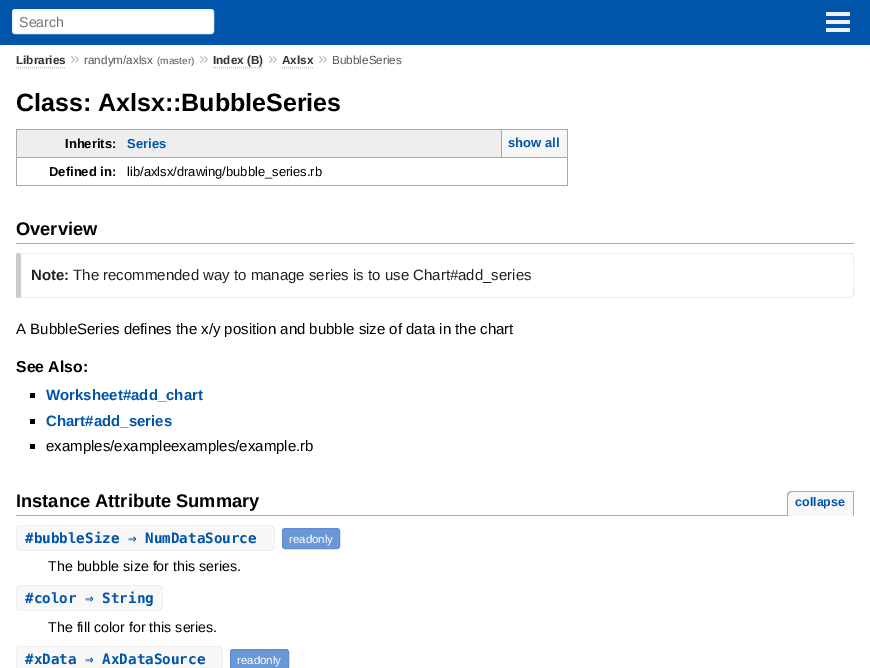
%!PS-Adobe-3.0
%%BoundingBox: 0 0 870 668
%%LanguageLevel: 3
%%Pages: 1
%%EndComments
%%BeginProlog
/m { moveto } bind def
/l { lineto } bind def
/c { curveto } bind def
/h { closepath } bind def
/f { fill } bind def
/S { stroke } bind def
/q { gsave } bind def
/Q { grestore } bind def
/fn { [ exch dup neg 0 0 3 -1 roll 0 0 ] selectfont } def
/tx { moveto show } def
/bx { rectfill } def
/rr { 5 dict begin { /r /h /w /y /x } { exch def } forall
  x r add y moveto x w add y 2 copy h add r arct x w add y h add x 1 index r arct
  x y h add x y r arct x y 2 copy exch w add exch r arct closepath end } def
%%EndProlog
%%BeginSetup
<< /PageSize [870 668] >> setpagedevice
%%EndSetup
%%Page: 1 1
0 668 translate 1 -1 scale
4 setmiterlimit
1 setgray
0 0 870 668 bx
0 0.333 0.667 setrgbcolor
0 0 870 45 bx
1 setgray
12.5 9.5 201 24 2.5 rr q f Q
0.918 0.941 1 setrgbcolor
S
/LiberationSans-Regular 14.25 fn
0.459 setgray
(Search) 19 27 tx
0.918 0.941 1 setrgbcolor
826 12 24 4 1 rr f
826 20 24 4 1 rr f
826 28 24 4 1 rr f
/LiberationSans-Bold 11.75 fn
0.2 setgray
(Libraries) 16 64 tx
0.733 0.733 0.867 setrgbcolor
[1 1] 0 setdash
16 67.5 m 66 67.5 l S
/LiberationSans-Regular 17 fn
0.733 setgray
(») 70 64 tx
/LiberationSans-Regular 11.75 fn
0.333 setgray
(randym/axlsx) 84 64 tx
/LiberationSans-Regular 10 fn
(\(master\)) 157 64 tx
/LiberationSans-Regular 17 fn
0.733 setgray
(») 199 64 tx
/LiberationSans-Bold 11.75 fn
0.2 setgray
(Index \(B\)) 213 64 tx
0.733 0.733 0.867 setrgbcolor
213 67.5 m 263 67.5 l S
/LiberationSans-Regular 17 fn
0.733 setgray
(») 268 64 tx
/LiberationSans-Bold 11.75 fn
0.2 setgray
(Axlsx) 282 64 tx
0.733 0.733 0.867 setrgbcolor
282 67.5 m 314 67.5 l S
/LiberationSans-Regular 17 fn
0.733 setgray
(») 318 64 tx
/LiberationSans-Regular 11.75 fn
0.333 setgray
(BubbleSeries) 332 64 tx
/LiberationSans-Bold 25 fn
0 setgray
(Class: Axlsx::BubbleSeries) 16 111 tx
0.933 setgray
17 130 484 27 bx
0.667 setgray
16 129 552 1 bx
16 129 1 28 bx
/LiberationSans-Bold 13 fn
0 setgray
(Inherits:) 65 148 tx
0.667 setgray
16 157 552 1 bx
567 129 1 57 bx
0 0.333 0.667 setrgbcolor
(Series) 127 148 tx
0.965 setgray
502 130 65 27 bx
0.667 setgray
501 130 1 27 bx
0 0.333 0.667 setrgbcolor
(show all) 508 147 tx
0.667 setgray
16 185 111 1 bx
16 157 1 29 bx
0 setgray
(Defined in:) 49 176 tx
0.667 setgray
127 185 441 1 bx
/LiberationSans-Regular 13 fn
0 setgray
(lib/axlsx/drawing/bubble_series.rb) 127 176 tx
0.667 setgray
16 243 838 1 bx
/LiberationSans-Bold 18.25 fn
0 setgray
(Overview) 16 235 tx
0.933 setgray
19 253 m 17 253 l 21 254 l 851 254 l 852 255 l 853 254 l 851 253 l h f
854 295 m 854 290 855 256 853 254 c 852 255 l 854 256 854 295 852 296 c 853 297 l h f
19 298 m 851 298 l 853 297 l 852 296 l 851 297 l 21 297 l 17 298 l h f
0.8 setgray
21 254 m 17 253 l 16 254 16 255 16 256 c 16 295 l 16 296 16 297 17 298 c 21 297 l h f
/LiberationSans-Bold 15 fn
0.133 setgray
(Note:) 31 280 tx
/LiberationSans-Regular 15 fn
(The recommended way to manage series is to use Chart#add_series) 73 280 tx
0 setgray
(A BubbleSeries defines the x/y position and bubble size of data in the chart) 16 334 tx
/LiberationSans-Bold 15.75 fn
(See Also:) 16 372 tx
30 393 5 5 bx
/LiberationSans-Bold 15 fn
0 0.333 0.667 setrgbcolor
(Worksheet#add_chart) 46 400 tx
0 setgray
30 419 5 5 bx
0 0.333 0.667 setrgbcolor
(Chart#add_series) 46 426 tx
0 setgray
30 444 5 5 bx
/LiberationSans-Regular 15 fn
(examples/exampleexamples/example.rb) 46 451 tx
0.667 setgray
16 515 771 1 bx
/LiberationSans-Bold 18.25 fn
0 setgray
(Instance Attribute Summary) 16 507 tx
0.973 setgray
792 491 m 854 491 l 854 516 l 787 516 l 787 496 l 787 493 789 491 792 491 c h f
0.667 setgray
792 491 m 854 491 l 854 516 l 787 516 l 787 496 l 787 493 789 491 792 491 c h 792 492 m 853 492 l 853 516 l 788 516 l 788 496 l 788 494 790 492 792 492 c h eofill
/LiberationSans-Bold 12.5 fn
0 0.333 0.667 setrgbcolor
(collapse) 795 506 tx
0.973 setgray
21 525 m 33 525 l 33 551 l 21 551 l 18 551 16 549 16 546 c 16 530 l 16 527 18 525 21 525 c h f
0.941 setgray
21 525 m 33 525 l 33 551 l 21 551 l 18 551 16 549 16 546 c 16 530 l 16 527 18 525 21 525 c h 21 526 m 33 526 l 33 550 l 21 550 l 19 550 17 548 17 546 c 17 530 l 17 528 19 526 21 526 c h eofill
0.973 setgray
33 526 86 24 bx
119 525 m 270 525 l 273 525 275 527 275 530 c 275 546 l 275 549 273 551 270 551 c 119 551 l h f
0.941 setgray
119 525 m 270 525 l 273 525 275 527 275 530 c 275 546 l 275 549 273 551 270 551 c 119 551 l h 119 526 m 270 526 l 272 526 274 528 274 530 c 274 546 l 274 548 272 550 270 550 c 119 550 l h eofill
/DejaVuSansMono-Bold 14.25 fn
0 0.333 0.667 setrgbcolor
(#bubbleSize ⇒ NumDataSource) 25 543 tx
0.941 setgray
33 525 86 1 bx
33 550 86 1 bx
0.416 0.596 0.839 setrgbcolor
282.5 528.5 57 20 2.5 rr q f Q
0.4 0.537 0.839 setrgbcolor
[] 0 setdash
S
/LiberationSans-Regular 11.5 fn
1 setgray
(readonly) 289 543 tx
/LiberationSans-Regular 14.25 fn
0 setgray
(The bubble size for this series.) 48 571 tx
0.973 setgray
21 585 m 33 585 l 33 611 l 21 611 l 18 611 16 609 16 606 c 16 590 l 16 587 18 585 21 585 c h f
0.941 setgray
21 585 m 33 585 l 33 611 l 21 611 l 18 611 16 609 16 606 c 16 590 l 16 587 18 585 21 585 c h 21 586 m 33 586 l 33 610 l 21 610 l 19 610 17 608 17 606 c 17 590 l 17 588 19 586 21 586 c h eofill
0.973 setgray
33 586 43 24 bx
76 585 m 158 585 l 161 585 163 587 163 590 c 163 606 l 163 609 161 611 158 611 c 76 611 l h f
0.941 setgray
76 585 m 158 585 l 161 585 163 587 163 590 c 163 606 l 163 609 161 611 158 611 c 76 611 l h 76 586 m 158 586 l 160 586 162 588 162 590 c 162 606 l 162 608 160 610 158 610 c 76 610 l h eofill
/DejaVuSansMono-Bold 14.25 fn
0 0.333 0.667 setrgbcolor
(#color ⇒ String) 25 603 tx
0.941 setgray
33 585 43 1 bx
33 610 43 1 bx
/LiberationSans-Regular 14.25 fn
0 setgray
(The fill color for this series.) 48 632 tx
0.973 setgray
21 646 m 33 646 l 33 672 l 21 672 l 18 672 16 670 16 667 c 16 651 l 16 648 18 646 21 646 c h f
0.941 setgray
21 646 m 33 646 l 33 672 l 21 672 l 18 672 16 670 16 667 c 16 651 l 16 648 18 646 21 646 c h 21 647 m 33 647 l 33 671 l 21 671 l 19 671 17 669 17 667 c 17 651 l 17 649 19 647 21 647 c h eofill
0.973 setgray
33 647 43 21 bx
76 646 m 218 646 l 221 646 223 648 223 651 c 223 667 l 223 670 221 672 218 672 c 76 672 l h f
0.941 setgray
76 646 m 218 646 l 221 646 223 648 223 651 c 223 667 l 223 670 221 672 218 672 c 76 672 l h 76 647 m 218 647 l 220 647 222 649 222 651 c 222 667 l 222 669 220 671 218 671 c 76 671 l h eofill
/DejaVuSansMono-Bold 14.25 fn
0 0.333 0.667 setrgbcolor
(#xData ⇒ AxDataSource) 25 664 tx
0.941 setgray
33 646 43 1 bx
0.416 0.596 0.839 setrgbcolor
230.5 649.5 58 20 2.5 rr q f Q
0.4 0.537 0.839 setrgbcolor
S
/LiberationSans-Regular 11.5 fn
1 setgray
(readonly) 237 664 tx
showpage
%%EOF
